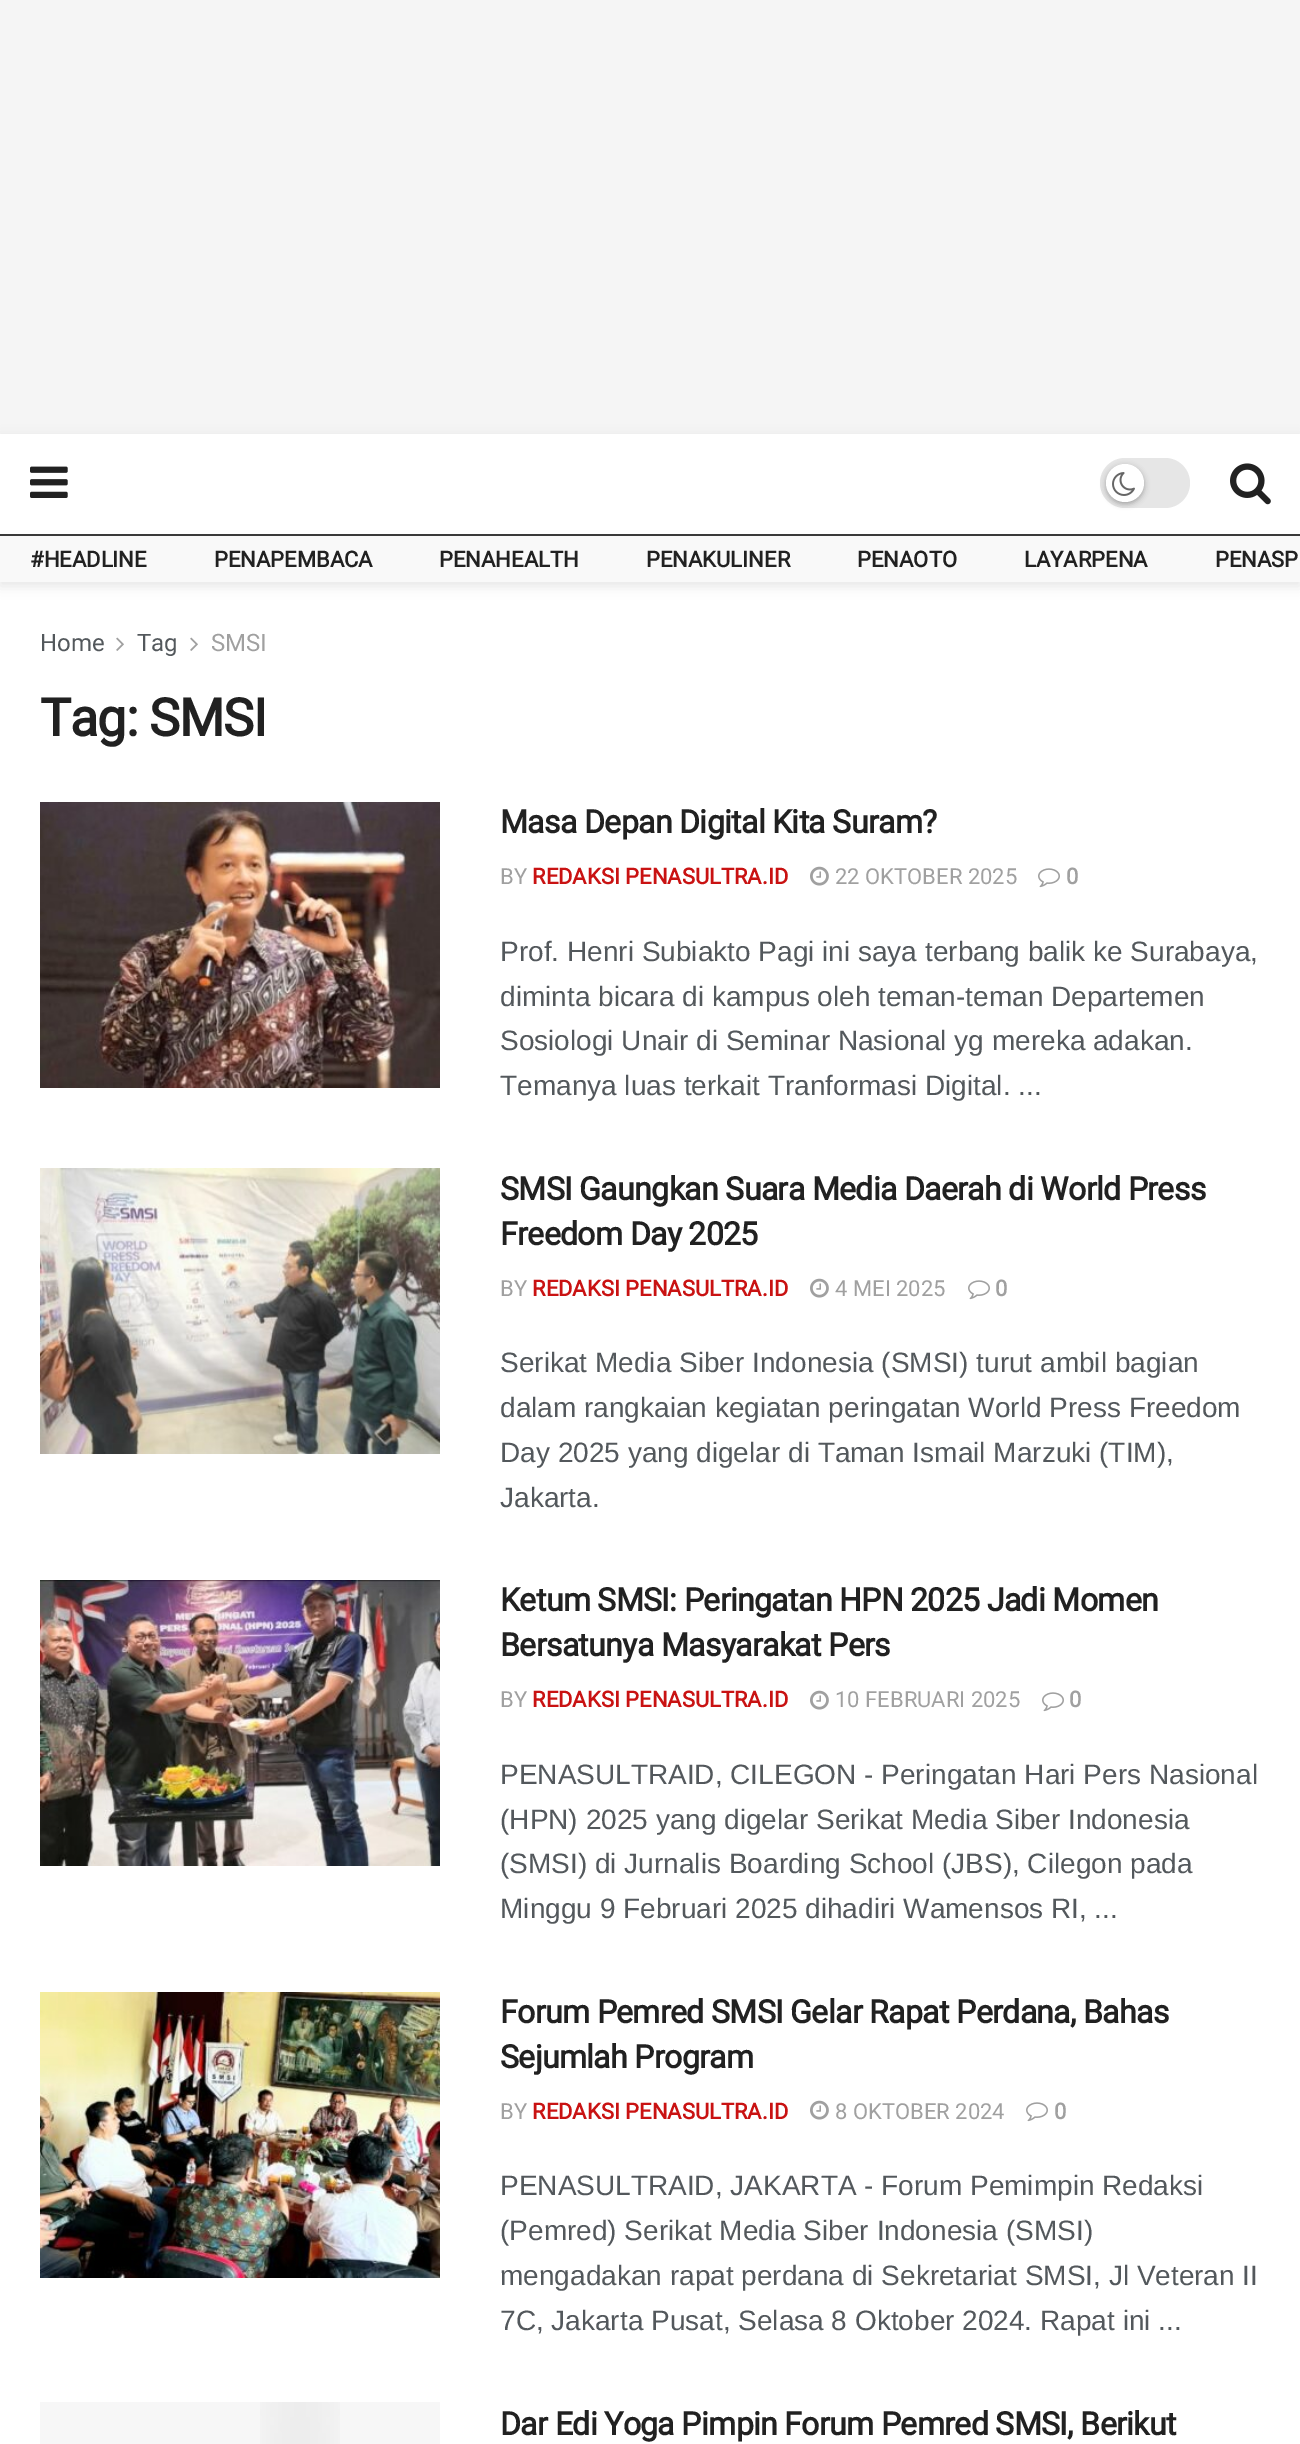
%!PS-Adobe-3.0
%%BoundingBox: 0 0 1300 2444
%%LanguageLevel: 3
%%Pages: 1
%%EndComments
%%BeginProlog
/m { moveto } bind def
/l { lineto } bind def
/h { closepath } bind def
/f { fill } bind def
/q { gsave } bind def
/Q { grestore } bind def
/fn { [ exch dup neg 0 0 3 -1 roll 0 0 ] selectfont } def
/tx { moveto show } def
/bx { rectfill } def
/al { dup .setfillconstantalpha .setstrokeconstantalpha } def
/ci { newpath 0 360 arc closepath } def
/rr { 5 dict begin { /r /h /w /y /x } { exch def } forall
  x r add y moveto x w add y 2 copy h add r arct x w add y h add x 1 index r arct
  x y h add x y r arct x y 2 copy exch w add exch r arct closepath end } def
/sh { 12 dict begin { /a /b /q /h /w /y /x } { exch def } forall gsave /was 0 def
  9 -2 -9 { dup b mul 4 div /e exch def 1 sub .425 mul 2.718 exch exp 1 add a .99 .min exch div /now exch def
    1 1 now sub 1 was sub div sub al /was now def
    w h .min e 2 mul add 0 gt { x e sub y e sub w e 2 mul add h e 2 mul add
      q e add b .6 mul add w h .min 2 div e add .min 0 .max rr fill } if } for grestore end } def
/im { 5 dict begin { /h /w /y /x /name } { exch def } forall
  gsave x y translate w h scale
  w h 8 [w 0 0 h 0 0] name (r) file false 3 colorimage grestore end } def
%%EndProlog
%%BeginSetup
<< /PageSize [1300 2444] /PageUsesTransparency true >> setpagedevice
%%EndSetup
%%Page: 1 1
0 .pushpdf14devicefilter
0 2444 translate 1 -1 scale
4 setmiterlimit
1 setgray
0 0 1300 2444 bx
0.961 setgray
0 0 1300 434 bx
q
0 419 m 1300 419 l 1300 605 l 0 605 l h 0 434 m 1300 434 l 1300 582 l 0 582 l h eoclip newpath
0 setgray
0 438 1300 148 0 6 0.1 sh
Q
(image0.raw) 30 466 38 32 im
0.902 setgray
1100 458 90 50 25 rr f
0 setgray
1106 466 38 38 19 3 0.3 sh
1 setgray
1125 483 19 ci f
(image1.raw) 1112 472 23 24 im
(image2.raw) 1230 463 41 42 im
0.976 setgray
0 536 1300 46 bx
0.227 setgray
0 534 1300 2 bx
/Roboto-Bold 22 fn
0.129 setgray
(#HEADLINE) 30 567 tx
(PENAPEMBACA) 214 567 tx
(PENAHEALTH) 439 567 tx
(PENAKULINER) 646 567 tx
(PENAOTO) 857 567 tx
(LAYARPENA) 1024 567 tx
(PENASP) 1215 567 tx
/Roboto-Regular 24 fn
0.325 0.345 0.361 setrgbcolor
(Home) 40 651 tx
(image3.raw) 116 637 8 14 im
(Tag) 137 651 tx
(image3.raw) 190 637 8 14 im
0.627 setgray
(SMSI) 211 651 tx
/Roboto-Bold 52 fn
0.129 setgray
40 736 m -1 0 (Tag: SMSI) ashow
(image4.raw) 40 802 400 286 im
/Roboto-Bold 32 fn
500 833 m -0.65 0 (Masa Depan Digital Kita Suram?) ashow
/Roboto-Regular 22 fn
0.627 setgray
(BY) 500 884 tx
/Roboto-Bold 22 fn
0.788 0.071 0.071 setrgbcolor
(REDAKSI PENASULTRA.ID) 532 884 tx
(image5.raw) 810 866 19 20 im
/Roboto-Regular 22 fn
0.627 setgray
(22 OKTOBER 2025) 835 884 tx
(image6.raw) 1038 868 22 20 im
/Roboto-Bold 22 fn
(0) 1066 884 tx
/LiberationSans-Regular 28 fn
0.325 0.345 0.361 setrgbcolor
(Prof. Henri Subiakto Pagi ini saya terbang balik ke Surabaya,) 500 961 tx
(diminta bicara di kampus oleh teman-teman Departemen) 500 1006 tx
(Sosiologi Unair di Seminar Nasional yg mereka adakan.) 500 1050 tx
(Temanya luas terkait Tranformasi Digital. ...) 500 1095 tx
(image7.raw) 40 1168 400 286 im
/Roboto-Bold 32 fn
0.129 setgray
500 1200 m -0.65 0 (SMSI Gaungkan Suara Media Daerah di World Press) ashow
500 1245 m -0.65 0 (Freedom Day 2025) ashow
/Roboto-Regular 22 fn
0.627 setgray
(BY) 500 1296 tx
/Roboto-Bold 22 fn
0.788 0.071 0.071 setrgbcolor
(REDAKSI PENASULTRA.ID) 532 1296 tx
(image5.raw) 810 1278 19 20 im
/Roboto-Regular 22 fn
0.627 setgray
(4 MEI 2025) 835 1296 tx
(image6.raw) 968 1280 22 20 im
/Roboto-Bold 22 fn
(0) 995 1296 tx
/LiberationSans-Regular 28 fn
0.325 0.345 0.361 setrgbcolor
(Serikat Media Siber Indonesia \(SMSI\) turut ambil bagian) 500 1372 tx
(dalam rangkaian kegiatan peringatan World Press Freedom) 500 1417 tx
(Day 2025 yang digelar di Taman Ismail Marzuki \(TIM\),) 500 1462 tx
(Jakarta.) 500 1507 tx
(image8.raw) 40 1580 400 286 im
/Roboto-Bold 32 fn
0.129 setgray
500 1611 m -0.65 0 (Ketum SMSI: Peringatan HPN 2025 Jadi Momen) ashow
500 1656 m -0.65 0 (Bersatunya Masyarakat Pers) ashow
/Roboto-Regular 22 fn
0.627 setgray
(BY) 500 1707 tx
/Roboto-Bold 22 fn
0.788 0.071 0.071 setrgbcolor
(REDAKSI PENASULTRA.ID) 532 1707 tx
(image5.raw) 810 1690 19 20 im
/Roboto-Regular 22 fn
0.627 setgray
(10 FEBRUARI 2025) 835 1707 tx
(image6.raw) 1042 1692 22 20 im
/Roboto-Bold 22 fn
(0) 1069 1707 tx
/LiberationSans-Regular 28 fn
0.325 0.345 0.361 setrgbcolor
(PENASULTRAID, CILEGON - Peringatan Hari Pers Nasional) 500 1784 tx
(\(HPN\) 2025 yang digelar Serikat Media Siber Indonesia) 500 1829 tx
(\(SMSI\) di Jurnalis Boarding School \(JBS\), Cilegon pada) 500 1873 tx
(Minggu 9 Februari 2025 dihadiri Wamensos RI, ...) 500 1918 tx
(image9.raw) 40 1992 400 286 im
/Roboto-Bold 32 fn
0.129 setgray
500 2023 m -0.65 0 (Forum Pemred SMSI Gelar Rapat Perdana, Bahas) ashow
500 2068 m -0.65 0 (Sejumlah Program) ashow
/Roboto-Regular 22 fn
0.627 setgray
(BY) 500 2119 tx
/Roboto-Bold 22 fn
0.788 0.071 0.071 setrgbcolor
(REDAKSI PENASULTRA.ID) 532 2119 tx
(image5.raw) 810 2100 19 20 im
/Roboto-Regular 22 fn
0.627 setgray
(8 OKTOBER 2024) 835 2119 tx
(image6.raw) 1026 2102 22 20 im
/Roboto-Bold 22 fn
(0) 1054 2119 tx
/LiberationSans-Regular 28 fn
0.325 0.345 0.361 setrgbcolor
(PENASULTRAID, JAKARTA - Forum Pemimpin Redaksi) 500 2195 tx
(\(Pemred\) Serikat Media Siber Indonesia \(SMSI\)) 500 2240 tx
(mengadakan rapat perdana di Sekretariat SMSI, Jl Veteran II) 500 2285 tx
(7C, Jakarta Pusat, Selasa 8 Oktober 2024. Rapat ini ...) 500 2330 tx
0.969 setgray
40 2402 400 42 bx
(image10.raw) 260 2402 80 42 im
/Roboto-Bold 32 fn
0.129 setgray
500 2435 m -0.65 0 (Dar Edi Yoga Pimpin Forum Pemred SMSI, Berikut) ashow
.poppdf14devicefilter showpage
%%EOF
